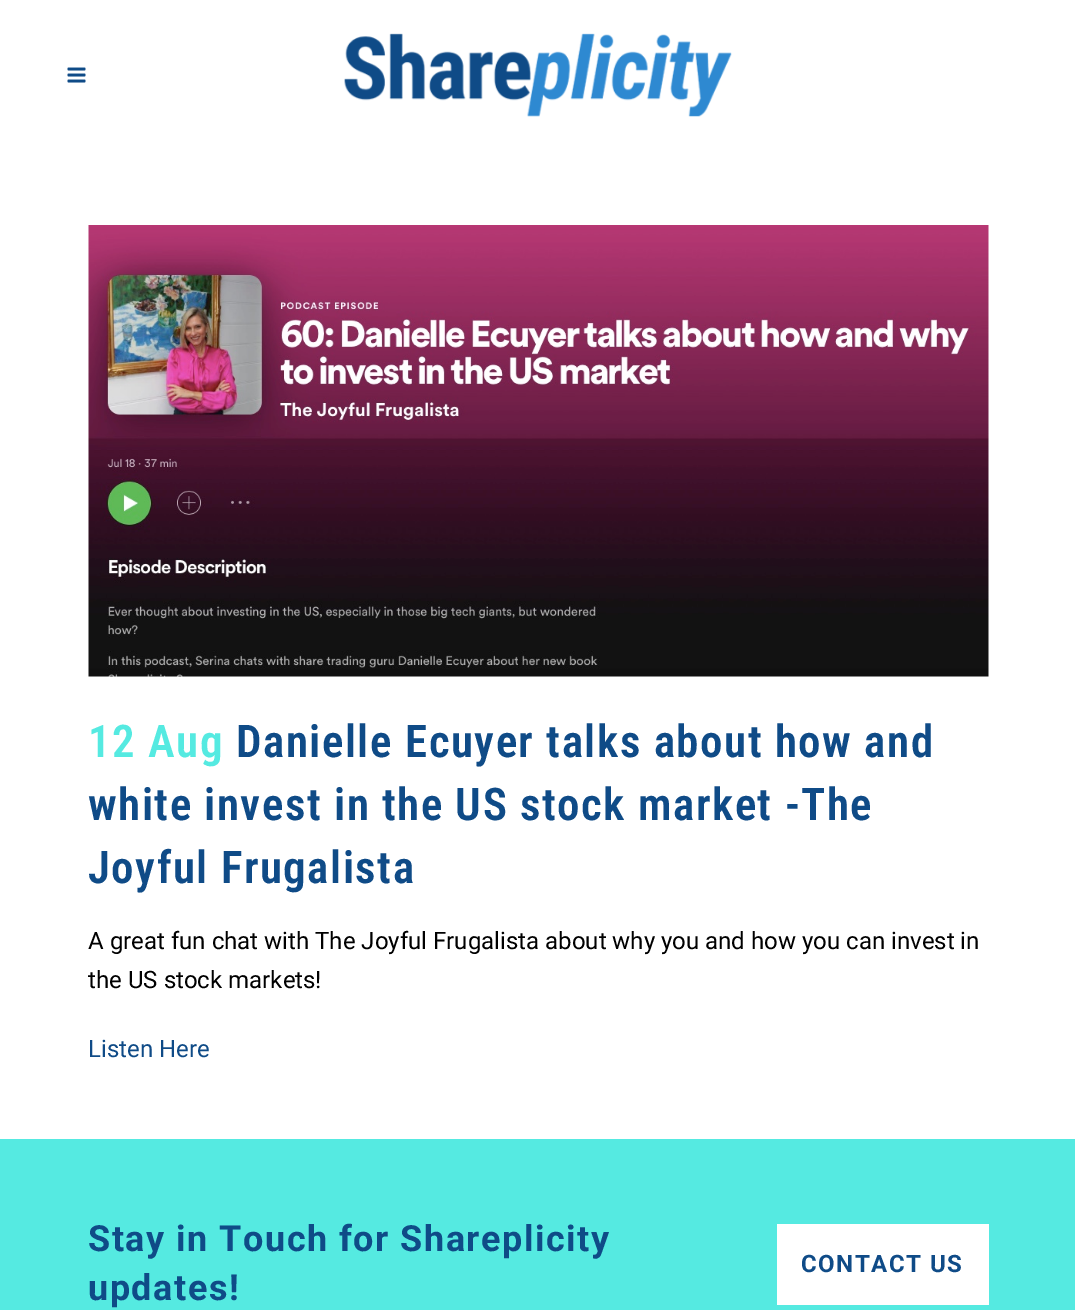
%!PS-Adobe-3.0
%%BoundingBox: 0 0 1075 1310
%%LanguageLevel: 3
%%Pages: 1
%%EndComments
%%BeginProlog
/m { moveto } bind def
/fn { [ exch dup neg 0 0 3 -1 roll 0 0 ] selectfont } def
/tx { moveto show } def
/bx { rectfill } def
/im { 5 dict begin { /h /w /y /x /name } { exch def } forall
  gsave x y translate w h scale
  w h 8 [w 0 0 h 0 0] name (r) file false 3 colorimage grestore end } def
%%EndProlog
%%BeginSetup
<< /PageSize [1075 1310] >> setpagedevice
%%EndSetup
%%Page: 1 1
0 1310 translate 1 -1 scale
4 setmiterlimit
1 setgray
0 0 1075 1310 bx
(image0.raw) 67 67 19 16 im
(image1.raw) 344 33 388 84 im
(image2.raw) 88 225 901 452 im
/RobotoCondensed-SemiBold 45 fn
0.333 0.918 0.882 setrgbcolor
88 757 m 1.5 0 (12 Aug) ashow
0.059 0.294 0.529 setrgbcolor
236 757 m 1.5 0 (Danielle Ecuyer talks about how and) ashow
88 820 m 1.5 0 (white invest in the US stock market -The) ashow
88 883 m 1.5 0 (Joyful Frugalista) ashow
/Roboto-Regular 24 fn
0 setgray
(A great fun chat with The Joyful Frugalista about why you and how you can invest in) 88 949 tx
(the US stock markets!) 88 988 tx
0.059 0.294 0.529 setrgbcolor
(Listen Here) 88 1057 tx
0.333 0.918 0.882 setrgbcolor
0 1139 1075 171 bx
/Roboto-Bold 36 fn
0.059 0.294 0.529 setrgbcolor
88 1251 m 1.5 0 (Stay in Touch for Shareplicity) ashow
88 1300 m 1.5 0 (updates!) ashow
1 setgray
777 1224 212 81 bx
/Roboto-Bold 24 fn
0.059 0.294 0.529 setrgbcolor
801 1272 m 1.5 0 (CONTACT US) ashow
showpage
%%EOF
